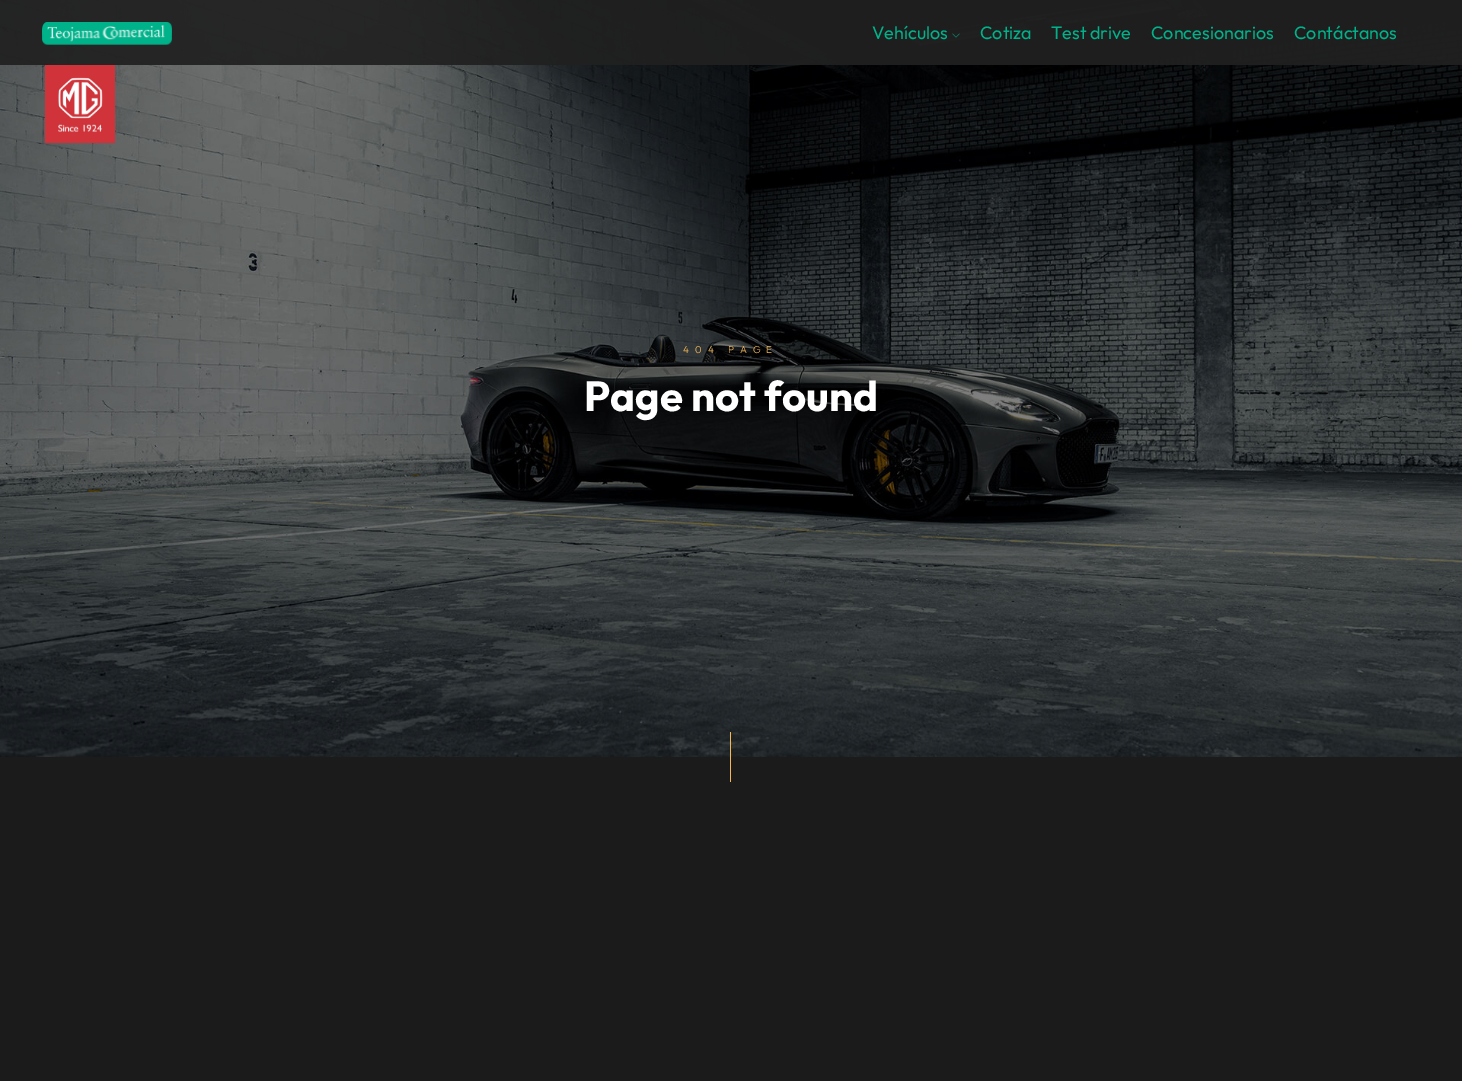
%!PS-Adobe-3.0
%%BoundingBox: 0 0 1462 1081
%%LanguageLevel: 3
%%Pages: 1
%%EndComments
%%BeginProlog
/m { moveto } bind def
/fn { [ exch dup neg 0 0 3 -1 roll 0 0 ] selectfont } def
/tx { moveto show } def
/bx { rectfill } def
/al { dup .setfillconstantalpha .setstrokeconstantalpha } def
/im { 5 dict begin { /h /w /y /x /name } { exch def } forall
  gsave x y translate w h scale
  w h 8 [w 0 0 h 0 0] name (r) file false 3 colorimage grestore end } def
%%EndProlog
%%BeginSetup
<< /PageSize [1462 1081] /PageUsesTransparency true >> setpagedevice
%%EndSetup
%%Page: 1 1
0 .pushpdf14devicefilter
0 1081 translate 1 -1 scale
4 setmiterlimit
0.106 setgray
0 0 1462 1081 bx
(image3.raw) 0 0 1462 757 im
0.93 al
0.125 setgray
0 0 1462 65 bx
1 al
(image0.raw) 42 22 130 23 im
/Outfit-Regular 18 fn
0 0.694 0.537 setrgbcolor
(Vehículos) 872 39 tx
(image1.raw) 952 33 8 5 im
(Cotiza) 980 39 tx
(Test drive) 1051 39 tx
(Concesionarios) 1151 39 tx
(Contáctanos) 1294 39 tx
(image2.raw) 45 65 70 79 im
/Outfit-Light 10 fn
0.961 0.718 0.329 setrgbcolor
683 353 m 6 0 (404 PAGE) ashow
/Outfit-Bold 42 fn
1 setgray
(Page not found) 584 411 tx
0.961 0.718 0.329 setrgbcolor
730 732 1 50 bx
.poppdf14devicefilter showpage
%%EOF
